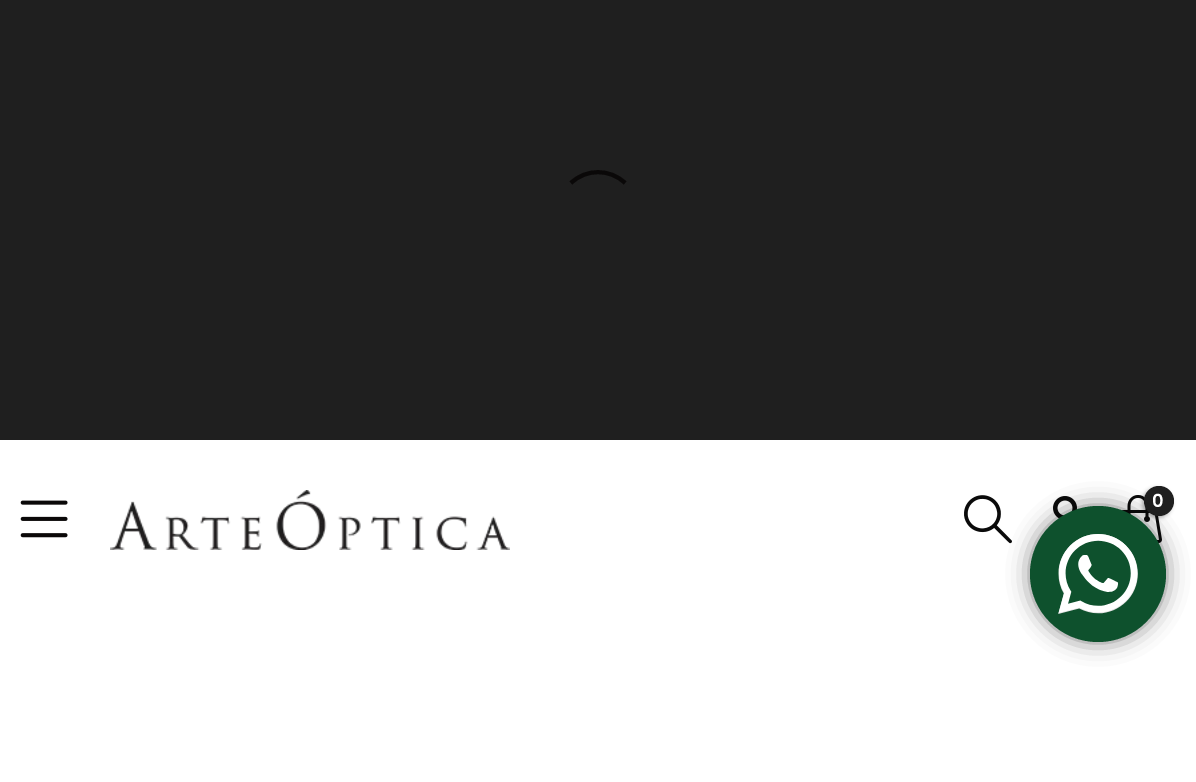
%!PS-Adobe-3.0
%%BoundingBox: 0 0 1196 782
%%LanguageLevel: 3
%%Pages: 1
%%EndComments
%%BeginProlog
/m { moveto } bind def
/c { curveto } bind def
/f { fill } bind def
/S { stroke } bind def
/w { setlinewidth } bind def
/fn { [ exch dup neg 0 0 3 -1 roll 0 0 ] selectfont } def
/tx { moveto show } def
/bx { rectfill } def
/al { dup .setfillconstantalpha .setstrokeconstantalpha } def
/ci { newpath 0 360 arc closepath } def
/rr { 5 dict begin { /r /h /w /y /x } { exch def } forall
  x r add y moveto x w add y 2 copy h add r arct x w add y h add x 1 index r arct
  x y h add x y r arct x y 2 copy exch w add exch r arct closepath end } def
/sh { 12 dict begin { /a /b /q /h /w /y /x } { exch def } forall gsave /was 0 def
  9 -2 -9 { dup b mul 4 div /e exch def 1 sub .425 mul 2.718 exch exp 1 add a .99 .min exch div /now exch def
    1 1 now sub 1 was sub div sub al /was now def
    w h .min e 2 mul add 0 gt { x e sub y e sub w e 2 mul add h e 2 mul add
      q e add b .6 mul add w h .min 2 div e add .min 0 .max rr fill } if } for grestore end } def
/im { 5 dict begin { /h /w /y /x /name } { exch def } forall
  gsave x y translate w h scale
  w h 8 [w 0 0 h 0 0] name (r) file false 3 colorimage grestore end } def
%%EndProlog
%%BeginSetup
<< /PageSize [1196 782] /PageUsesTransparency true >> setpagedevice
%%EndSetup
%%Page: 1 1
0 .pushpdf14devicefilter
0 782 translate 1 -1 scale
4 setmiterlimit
1 setgray
0 0 1196 782 bx
(image3.raw) 964 495 48 49 im
(image4.raw) 1053 496 24 23 im
(image5.raw) 1121 495 41 49 im
0 setgray
1142 488 30 30 15 2 0.3 sh
0.122 setgray
1159 501 15 ci f
0 setgray
1030 506 136 136 68 11 0.5 sh
/Poppins-SemiBold 18 fn
1 setgray
(0) 1152 507 tx
0.055 0.318 0.176 setrgbcolor
1098 574 68 ci f
(image0.raw) 1058 534 80 80 im
0.122 setgray
0 0 1196 440 bx
0.039 0.031 0.031 setrgbcolor
4 w
571 183 m 586 168.5 610 168.5 625 183 c S
(image1.raw) 20 500 48 38 im
(image2.raw) 110 490 400 60 im
.poppdf14devicefilter showpage
%%EOF
